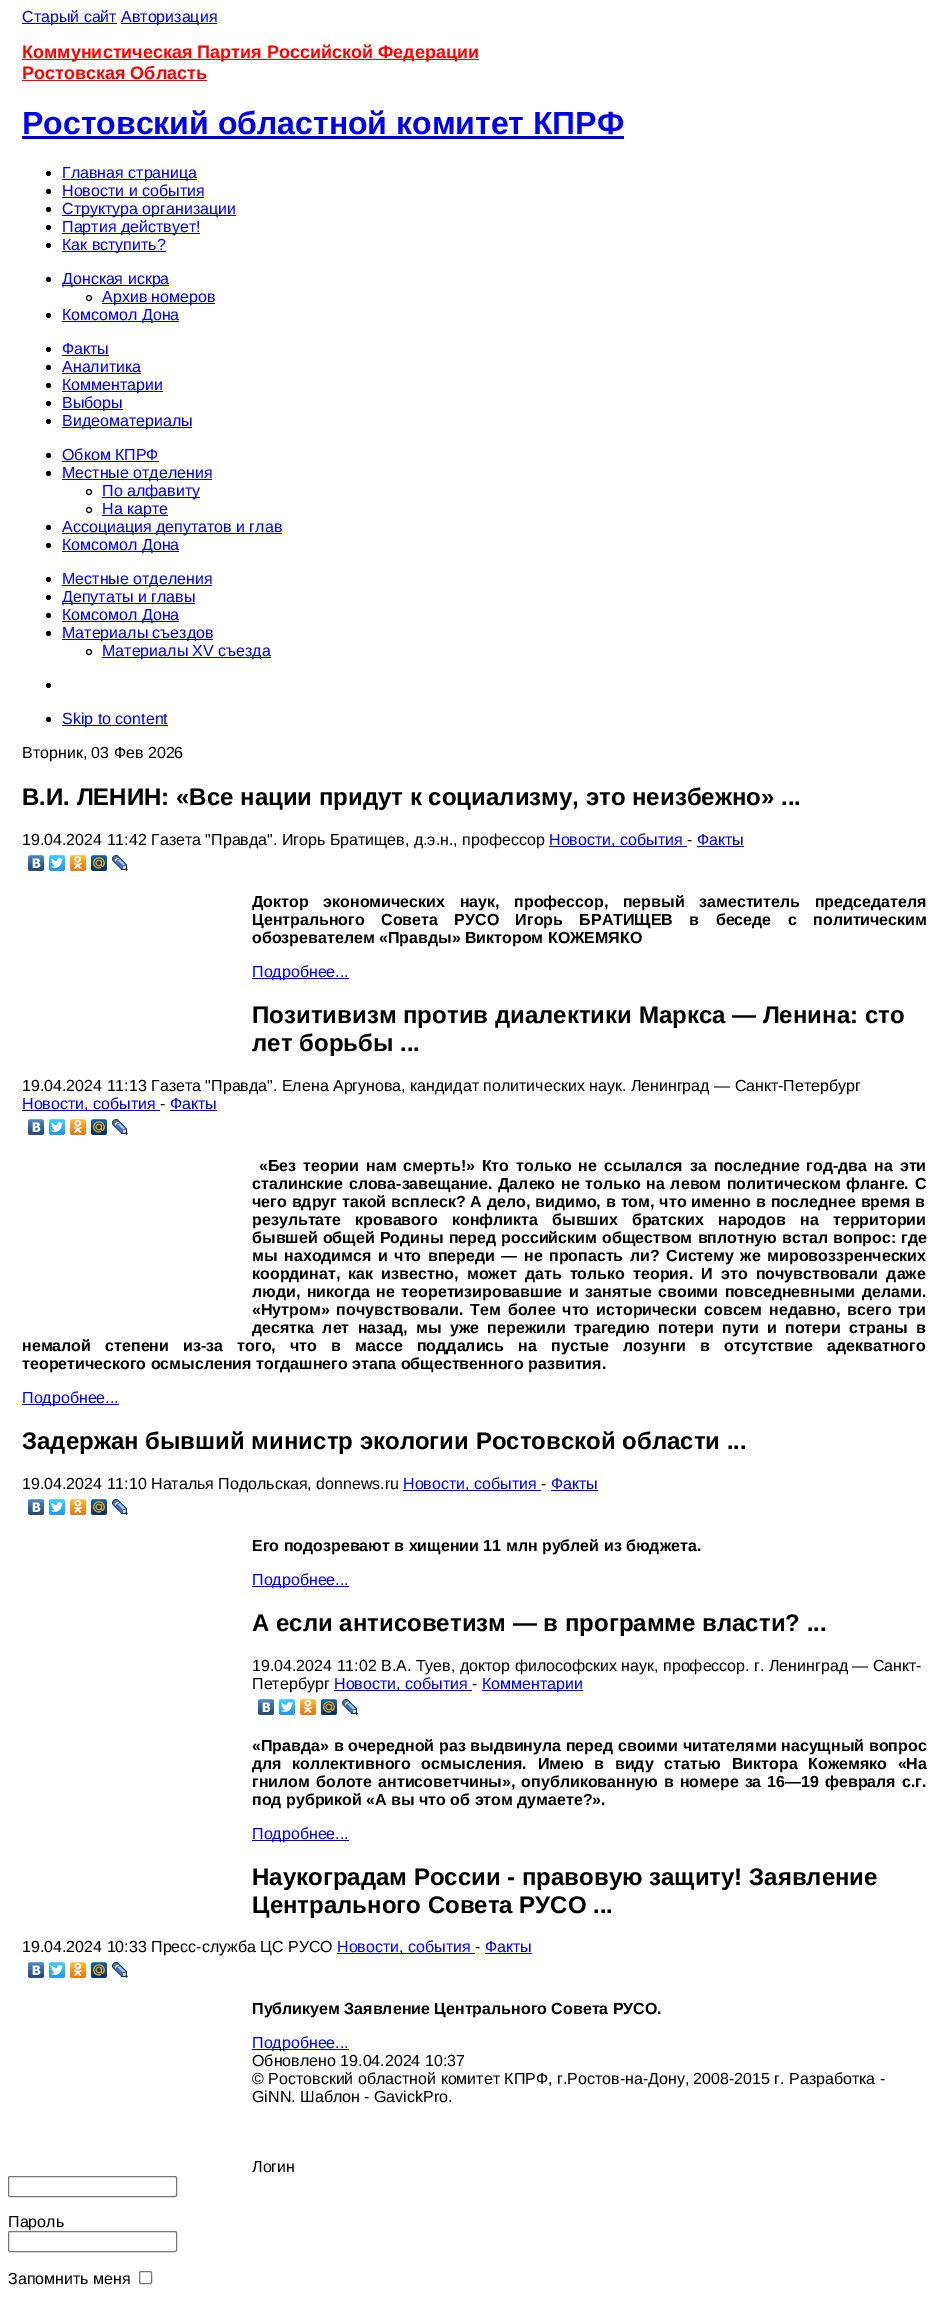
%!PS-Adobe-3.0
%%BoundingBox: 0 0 948 2302
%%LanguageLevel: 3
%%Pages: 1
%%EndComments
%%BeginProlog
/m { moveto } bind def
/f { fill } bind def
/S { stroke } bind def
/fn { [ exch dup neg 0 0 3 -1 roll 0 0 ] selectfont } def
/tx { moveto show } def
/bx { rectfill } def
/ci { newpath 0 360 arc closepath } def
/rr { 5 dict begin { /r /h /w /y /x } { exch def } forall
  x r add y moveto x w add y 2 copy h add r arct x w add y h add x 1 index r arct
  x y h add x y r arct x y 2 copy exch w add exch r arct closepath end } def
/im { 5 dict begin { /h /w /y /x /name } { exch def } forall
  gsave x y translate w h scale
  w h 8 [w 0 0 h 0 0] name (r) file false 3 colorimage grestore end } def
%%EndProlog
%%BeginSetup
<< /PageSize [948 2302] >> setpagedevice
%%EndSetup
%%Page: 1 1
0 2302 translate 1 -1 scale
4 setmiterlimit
1 setgray
0 0 948 2302 bx
0 0 0.933 setrgbcolor
22 23 95 1 bx
/LiberationSans-Regular 16 fn
(Старый сайт) 22 22 tx
121 23 96 1 bx
(Авторизация) 121 22 tx
1 0 0 setrgbcolor
22 59 457 1 bx
/LiberationSans-Bold 18 fn
(Коммунистическая Партия Российской Федерации) 22 58 tx
(Ростовская Область) 22 79 tx
22 80 185 1 bx
/LiberationSans-Bold 32 fn
0 0 0.933 setrgbcolor
(Ростовский областной комитет КПРФ) 22 134 tx
22 136 602 3 bx
0 setgray
48.5 173.5 2.5 ci f
0 0 0.933 setrgbcolor
62 179 135 1 bx
/LiberationSans-Regular 16 fn
(Главная страница) 62 178 tx
0 setgray
48.5 191.5 2.5 ci f
0 0 0.933 setrgbcolor
(Новости и события) 62 196 tx
62 197 142 1 bx
0 setgray
48.5 209.5 2.5 ci f
0 0 0.933 setrgbcolor
62 215 174 1 bx
(Структура организации) 62 214 tx
0 setgray
48.5 227.5 2.5 ci f
0 0 0.933 setrgbcolor
62 233 138 1 bx
(Партия действует!) 62 232 tx
0 setgray
48.5 245.5 2.5 ci f
0 0 0.933 setrgbcolor
62 251 104 1 bx
(Как вступить?) 62 250 tx
0 setgray
48.5 279.5 2.5 ci f
0 0 0.933 setrgbcolor
62 285 107 1 bx
(Донская искра) 62 284 tx
0 setgray
89 298 2.5 ci S
0 0 0.933 setrgbcolor
102 303 113 1 bx
(Архив номеров) 102 302 tx
0 setgray
48.5 315.5 2.5 ci f
0 0 0.933 setrgbcolor
62 321 117 1 bx
(Комсомол Дона) 62 320 tx
0 setgray
48.5 349.5 2.5 ci f
0 0 0.933 setrgbcolor
(Факты) 62 354 tx
62 355 47 1 bx
0 setgray
48.5 367.5 2.5 ci f
0 0 0.933 setrgbcolor
(Аналитика) 62 372 tx
62 373 79 1 bx
0 setgray
48.5 385.5 2.5 ci f
0 0 0.933 setrgbcolor
62 391 101 1 bx
(Комментарии) 62 390 tx
0 setgray
48.5 403.5 2.5 ci f
0 0 0.933 setrgbcolor
62 409 61 1 bx
(Выборы) 62 408 tx
0 setgray
48.5 421.5 2.5 ci f
0 0 0.933 setrgbcolor
62 427 130 1 bx
(Видеоматериалы) 62 426 tx
0 setgray
48.5 455.5 2.5 ci f
0 0 0.933 setrgbcolor
(Обком КПРФ) 62 460 tx
62 461 97 1 bx
0 setgray
48.5 473.5 2.5 ci f
0 0 0.933 setrgbcolor
62 479 150 1 bx
(Местные отделения) 62 478 tx
0 setgray
89 492 2.5 ci S
0 0 0.933 setrgbcolor
102 497 98 1 bx
(По алфавиту) 102 496 tx
0 setgray
89 510 2.5 ci S
0 0 0.933 setrgbcolor
102 515 66 1 bx
(На карте) 102 514 tx
0 setgray
48.5 527.5 2.5 ci f
0 0 0.933 setrgbcolor
62 533 220 1 bx
(Ассоциация депутатов и глав) 62 532 tx
0 setgray
48.5 545.5 2.5 ci f
0 0 0.933 setrgbcolor
62 551 117 1 bx
(Комсомол Дона) 62 550 tx
0 setgray
48.5 579.5 2.5 ci f
0 0 0.933 setrgbcolor
62 585 150 1 bx
(Местные отделения) 62 584 tx
0 setgray
48.5 597.5 2.5 ci f
0 0 0.933 setrgbcolor
62 603 133 1 bx
(Депутаты и главы) 62 602 tx
0 setgray
48.5 615.5 2.5 ci f
0 0 0.933 setrgbcolor
62 621 117 1 bx
(Комсомол Дона) 62 620 tx
0 setgray
48.5 633.5 2.5 ci f
0 0 0.933 setrgbcolor
62 639 151 1 bx
(Материалы съездов) 62 638 tx
0 setgray
89 652 2.5 ci S
0 0 0.933 setrgbcolor
102 657 169 1 bx
(Материалы XV съезда) 102 656 tx
0 setgray
48.5 685.5 2.5 ci f
48.5 719.5 2.5 ci f
0 0 0.933 setrgbcolor
62 725 106 1 bx
(Skip to content) 62 724 tx
0 setgray
(Вторник, 03 Фев 2026) 22 758 tx
/LiberationSans-Bold 24 fn
(В.И. ЛЕНИН: «Все нации придут к социализму, это неизбежно» ...) 22 805 tx
/LiberationSans-Regular 16 fn
(19.04.2024 11:42 Газета "Правда". Игорь Братищев, д.э.н., профессор) 22 845 tx
0 0 0.933 setrgbcolor
549 846 138 1 bx
(Новости, события) 549 845 tx
0 setgray
(-) 687 845 tx
0 0 0.933 setrgbcolor
(Факты) 697 845 tx
697 846 47 1 bx
(image0.raw) 28 855 16 16 im
(image1.raw) 49 855 16 16 im
(image2.raw) 70 855 16 16 im
(image3.raw) 91 855 16 16 im
(image4.raw) 112 855 16 16 im
/LiberationSans-Bold 16 fn
0 setgray
252 907 m 10.25 0 32 (Доктор экономических наук, профессор, первый заместитель председателя) widthshow
252 925 m 12 0 32 (Центрального Совета РУСО Игорь БРАТИЩЕВ в беседе с политическим) widthshow
(обозревателем «Правды» Виктором КОЖЕМЯКО) 252 943 tx
0 0 0.933 setrgbcolor
252 978 97 1 bx
/LiberationSans-Regular 16 fn
(Подробнее...) 252 977 tx
/LiberationSans-Bold 24 fn
0 setgray
(Позитивизм против диалектики Маркса — Ленина: сто) 252 1023 tx
(лет борьбы ...) 252 1051 tx
/LiberationSans-Regular 16 fn
(19.04.2024 11:13 Газета "Правда". Елена Аргунова, кандидат политических наук. Ленинград — Санкт-Петербург) 22 1091 tx
0 0 0.933 setrgbcolor
22 1110 138 1 bx
(Новости, события) 22 1109 tx
0 setgray
(-) 160 1109 tx
0 0 0.933 setrgbcolor
(Факты) 170 1109 tx
170 1110 47 1 bx
(image0.raw) 28 1119 16 16 im
(image1.raw) 49 1119 16 16 im
(image2.raw) 70 1119 16 16 im
(image3.raw) 91 1119 16 16 im
(image4.raw) 112 1119 16 16 im
/LiberationSans-Bold 16 fn
0 setgray
259 1171 m 2.5 0 32 («Без теории нам смерть!» Кто только не ссылался за последние год-два на эти) widthshow
252 1189 m 1.25 0 32 (сталинские слова-завещание. Далеко не только на левом политическом фланге. С) widthshow
252 1207 m 0.5 0 32 (чего вдруг такой всплеск? А дело, видимо, в том, что именно в последнее время в) widthshow
252 1225 m 9.75 0 32 (результате кровавого конфликта бывших братских народов на территории) widthshow
252 1243 m 0.75 0 32 (бывшей общей Родины перед российским обществом вплотную встал вопрос: где) widthshow
252 1261 m 2.1 0 32 (мы находимся и что впереди — не пропасть ли? Систему же мировоззренческих) widthshow
252 1279 m 3.75 0 32 (координат, как известно, может дать только теория. И это почувствовали даже) widthshow
252 1297 m 2.1 0 32 (люди, никогда не теоретизировавшие и занятые своими повседневными делами.) widthshow
252 1315 m 2.5 0 32 («Нутром» почувствовали. Тем более что исторически совсем недавно, всего три) widthshow
252 1333 m 3.9 0 32 (десятка лет назад, мы уже пережили трагедию потери пути и потери страны в) widthshow
22 1351 m 9.75 0 32 (немалой степени из-за того, что в массе поддались на пустые лозунги в отсутствие адекватного) widthshow
(теоретического осмысления тогдашнего этапа общественного развития.) 22 1369 tx
0 0 0.933 setrgbcolor
22 1404 97 1 bx
/LiberationSans-Regular 16 fn
(Подробнее...) 22 1403 tx
/LiberationSans-Bold 24 fn
0 setgray
(Задержан бывший министр экологии Ростовской области ...) 22 1449 tx
/LiberationSans-Regular 16 fn
(19.04.2024 11:10 Наталья Подольская, donnews.ru) 22 1489 tx
0 0 0.933 setrgbcolor
403 1490 138 1 bx
(Новости, события) 403 1489 tx
0 setgray
(-) 541 1489 tx
0 0 0.933 setrgbcolor
(Факты) 551 1489 tx
551 1490 47 1 bx
(image0.raw) 28 1499 16 16 im
(image1.raw) 49 1499 16 16 im
(image2.raw) 70 1499 16 16 im
(image3.raw) 91 1499 16 16 im
(image4.raw) 112 1499 16 16 im
/LiberationSans-Bold 16 fn
0 setgray
(Его подозревают в хищении 11 млн рублей из бюджета.) 252 1551 tx
0 0 0.933 setrgbcolor
252 1586 97 1 bx
/LiberationSans-Regular 16 fn
(Подробнее...) 252 1585 tx
/LiberationSans-Bold 24 fn
0 setgray
(А если антисоветизм — в программе власти? ...) 252 1631 tx
/LiberationSans-Regular 16 fn
(19.04.2024 11:02 В.А. Туев, доктор философских наук, профессор. г. Ленинград — Санкт-) 252 1671 tx
(Петербург) 252 1689 tx
0 0 0.933 setrgbcolor
334 1690 138 1 bx
(Новости, события) 334 1689 tx
0 setgray
(-) 472 1689 tx
0 0 0.933 setrgbcolor
482 1690 101 1 bx
(Комментарии) 482 1689 tx
(image0.raw) 258 1699 16 16 im
(image1.raw) 279 1699 16 16 im
(image2.raw) 300 1699 16 16 im
(image3.raw) 321 1699 16 16 im
(image4.raw) 342 1699 16 16 im
/LiberationSans-Bold 16 fn
0 setgray
252 1751 m 0.25 0 32 («Правда» в очередной раз выдвинула перед своими читателями насущный вопрос) widthshow
252 1769 m 6.25 0 32 (для коллективного осмысления. Имею в виду статью Виктора Кожемяко «На) widthshow
252 1787 m 1.5 0 32 (гнилом болоте антисоветчины», опубликованную в номере за 16—19 февраля с.г.) widthshow
(под рубрикой «А вы что об этом думаете?».) 252 1805 tx
0 0 0.933 setrgbcolor
252 1840 97 1 bx
/LiberationSans-Regular 16 fn
(Подробнее...) 252 1839 tx
/LiberationSans-Bold 24 fn
0 setgray
(Наукоградам России - правовую защиту! Заявление) 252 1885 tx
(Центрального Совета РУСО ...) 252 1913 tx
/LiberationSans-Regular 16 fn
(19.04.2024 10:33 Пресс-служба ЦС РУСО) 22 1952 tx
0 0 0.933 setrgbcolor
337 1953 138 1 bx
(Новости, события) 337 1952 tx
0 setgray
(-) 475 1952 tx
0 0 0.933 setrgbcolor
(Факты) 485 1952 tx
485 1953 47 1 bx
(image0.raw) 28 1962 16 16 im
(image1.raw) 49 1962 16 16 im
(image2.raw) 70 1962 16 16 im
(image3.raw) 91 1962 16 16 im
(image4.raw) 112 1962 16 16 im
/LiberationSans-Bold 16 fn
0 setgray
(Публикуем Заявление Центрального Совета РУСО.) 252 2014 tx
0 0 0.933 setrgbcolor
252 2049 97 1 bx
/LiberationSans-Regular 16 fn
(Подробнее...) 252 2048 tx
0 setgray
(Обновлено 19.04.2024 10:37) 252 2066 tx
(© Ростовский областной комитет КПРФ, г.Ростов-на-Дону, 2008-2015 г. Разработка -) 252 2084 tx
(GiNN. Шаблон - GavickPro.) 252 2102 tx
(Логин) 252 2172 tx
0.463 setgray
8.5 2176.5 168 20 1.5 rr S
0 setgray
(Пароль) 8 2227 tx
0.463 setgray
8.5 2231.5 168 20 1.5 rr S
0 setgray
(Запомнить меня) 8 2284 tx
0.463 setgray
139.5 2271.5 12 12 1.5 rr S
showpage
%%EOF
